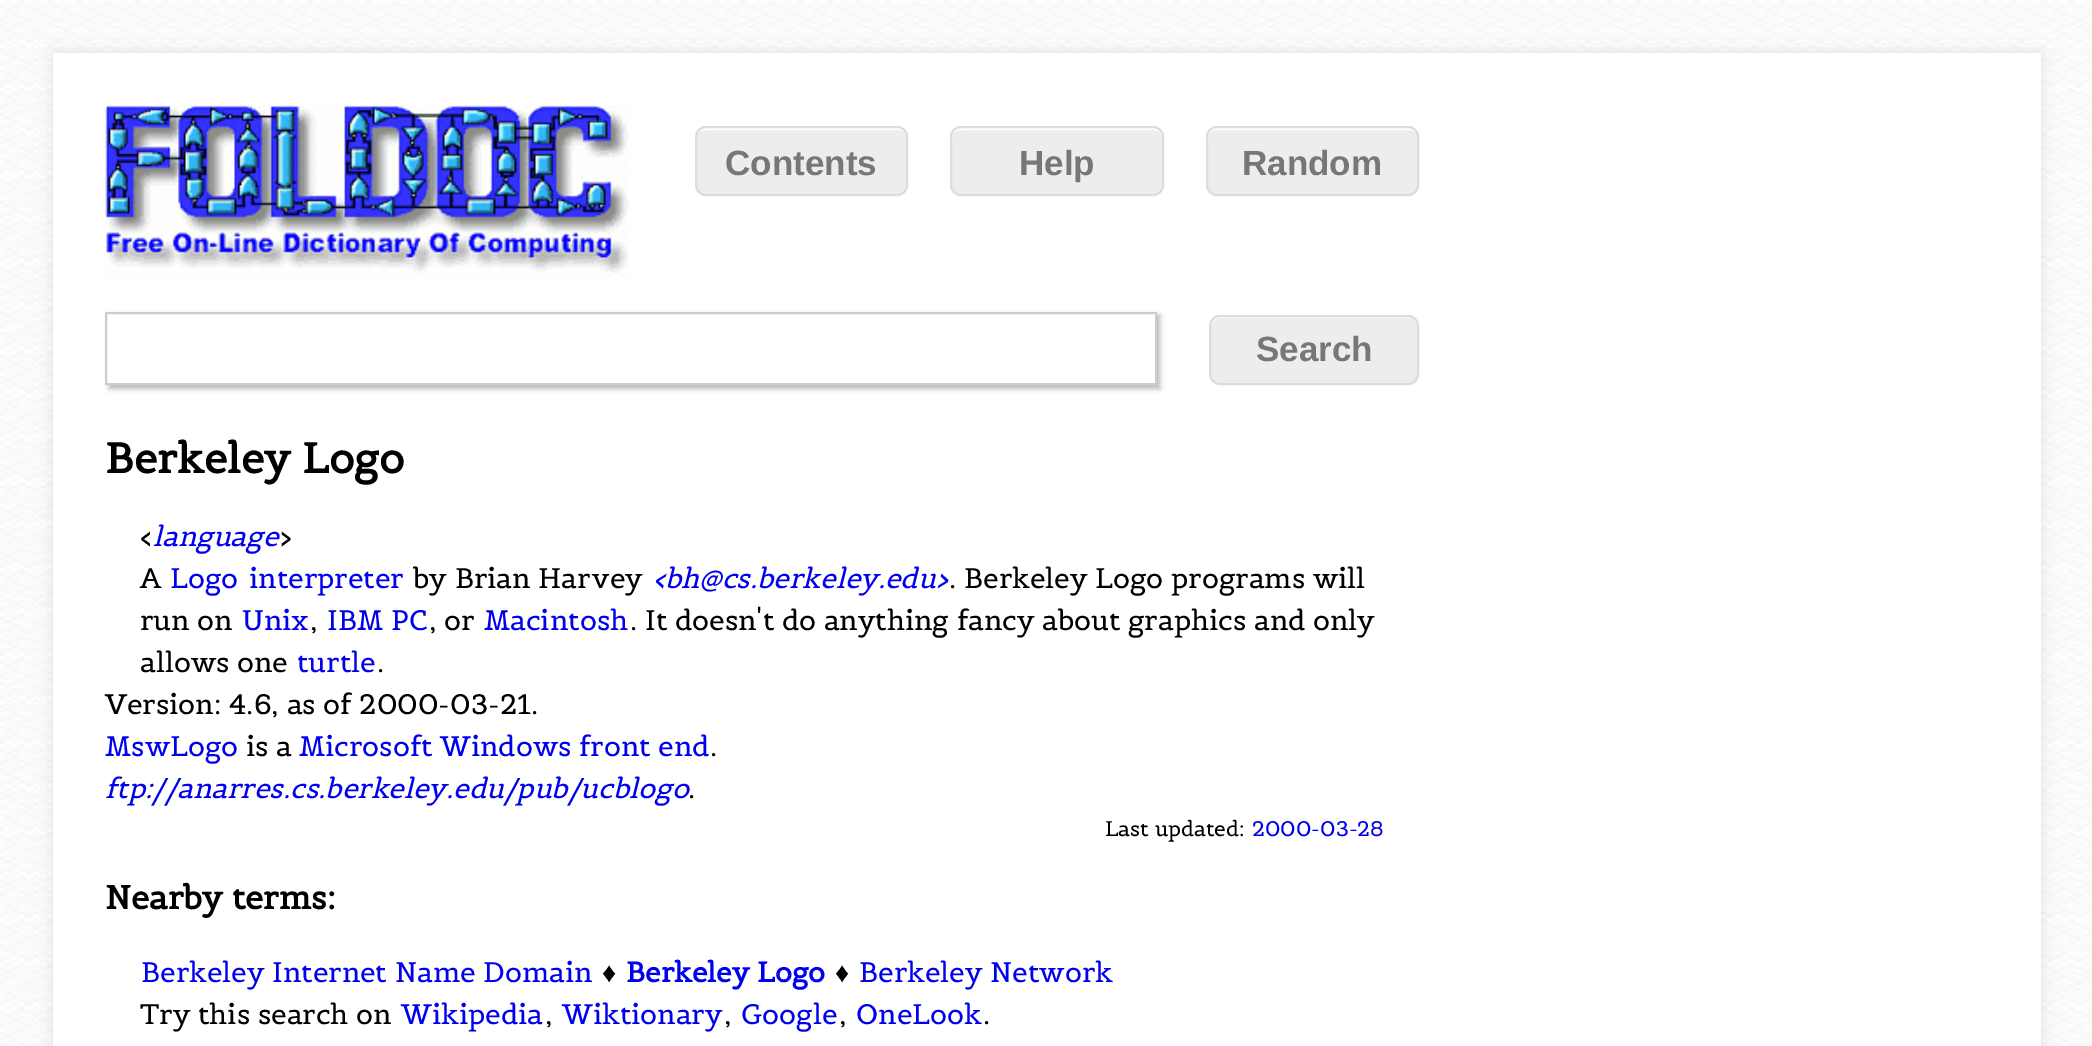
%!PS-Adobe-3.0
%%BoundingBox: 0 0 2092 1046
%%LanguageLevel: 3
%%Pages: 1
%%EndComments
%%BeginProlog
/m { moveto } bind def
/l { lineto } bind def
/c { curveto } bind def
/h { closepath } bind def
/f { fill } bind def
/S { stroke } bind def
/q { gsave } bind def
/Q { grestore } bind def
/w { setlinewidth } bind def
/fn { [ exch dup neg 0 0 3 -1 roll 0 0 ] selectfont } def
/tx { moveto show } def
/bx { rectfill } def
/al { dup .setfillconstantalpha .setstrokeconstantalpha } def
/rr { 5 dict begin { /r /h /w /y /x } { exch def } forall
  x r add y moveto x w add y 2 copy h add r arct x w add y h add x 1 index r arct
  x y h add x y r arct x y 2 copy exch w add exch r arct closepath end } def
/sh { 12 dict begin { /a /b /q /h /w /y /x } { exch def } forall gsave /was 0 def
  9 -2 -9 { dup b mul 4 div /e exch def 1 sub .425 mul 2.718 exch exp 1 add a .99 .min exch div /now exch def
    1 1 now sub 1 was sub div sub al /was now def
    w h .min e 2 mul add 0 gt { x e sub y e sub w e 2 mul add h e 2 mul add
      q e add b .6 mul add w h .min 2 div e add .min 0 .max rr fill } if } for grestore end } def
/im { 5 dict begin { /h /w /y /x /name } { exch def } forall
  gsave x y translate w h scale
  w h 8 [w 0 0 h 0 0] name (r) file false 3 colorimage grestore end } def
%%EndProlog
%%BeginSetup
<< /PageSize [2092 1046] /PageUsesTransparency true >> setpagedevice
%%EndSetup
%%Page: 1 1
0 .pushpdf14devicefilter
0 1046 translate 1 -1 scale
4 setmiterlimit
1 setgray
0 0 2092 1046 bx
(image0.raw) 0 0 2092 1046 im
0 setgray
53 53 1988 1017 0 8 0.1 sh
1 setgray
53 53 1988 993 bx
(image1.raw) 105 105 524 172 im
0.929 setgray
695 126 213 70 11 rr f
1 setgray
705 130 m 898 130 l 903 130 906 133 906 138 c 906 190 l 907 188 907 187 907 185 c 907 137 l 907 132 903 128 898 128 c 706 128 l 703 128 700 130 698 133 c 700 131 702 130 705 130 c h f
0.863 setgray
2 w
696 127 211 68 10 rr S
/LiberationSans-Bold 35 fn
0.467 setgray
(Contents) 725 175 tx
0.929 setgray
950 126 214 70 11 rr f
1 setgray
961 130 m 1153 130 l 1158 130 1162 133 1162 138 c 1162 137 l 1162 132 1158 128 1153 128 c 961 128 l 956 128 952 132 952 137 c 952 138 l 952 133 956 130 961 130 c h f
0.863 setgray
951 127 212 68 10 rr S
0.467 setgray
(Help) 1019 175 tx
0.929 setgray
1206 126 213 70 11 rr f
1 setgray
1216 130 m 1409 130 l 1414 130 1418 133 1418 138 c 1418 137 l 1418 132 1414 128 1409 128 c 1217 128 l 1212 128 1208 132 1208 137 c 1208 138 l 1208 133 1211 130 1216 130 c h f
0.863 setgray
1207 127 211 68 10 rr S
0.467 setgray
(Random) 1242 175 tx
0.196 setgray
109 315 1051 74 0 2.5 0.34 sh
1 setgray
106 313 m 1156 313 l 1156 384 l 106 384 l h q f Q
0.8 setgray
S
0.929 setgray
1209 315 210 70 11 rr f
1 setgray
1220 318 m 1409 318 l 1414 318 1418 322 1418 327 c 1418 326 l 1418 321 1414 317 1409 317 c 1220 317 l 1215 317 1211 321 1211 326 c 1211 327 l 1211 322 1215 318 1220 318 c h f
0.863 setgray
1210 316 208 68 10 rr S
0.467 setgray
(Search) 1256 361 tx
/Belgrano-Bold 42 fn
0 setgray
(Berkeley Logo) 105 473 tx
/Belgrano-Regular 28 fn
(<) 140 546 tx
/Belgrano-Italic 28 fn
0 0 0.933 setrgbcolor
(language) 153 546 tx
/Belgrano-Regular 28 fn
0 setgray
(>) 280 546 tx
(A) 140 588 tx
0 0 0.933 setrgbcolor
(Logo) 170 588 tx
(interpreter) 249 588 tx
0 setgray
(by Brian Harvey) 413 588 tx
/Belgrano-Italic 28 fn
0 0 0.933 setrgbcolor
(<bh@cs.berkeley.edu>) 653 588 tx
/Belgrano-Regular 28 fn
0 setgray
(. Berkeley Logo programs will) 949 588 tx
(run on) 140 630 tx
0 0 0.933 setrgbcolor
(Unix) 242 630 tx
0 setgray
(,) 310 630 tx
0 0 0.933 setrgbcolor
(IBM PC) 327 630 tx
0 setgray
(, or) 429 630 tx
0 0 0.933 setrgbcolor
(Macintosh) 484 630 tx
0 setgray
(. It doesn't do anything fancy about graphics and only) 630 630 tx
(allows one) 140 672 tx
0 0 0.933 setrgbcolor
(turtle) 297 672 tx
0 setgray
(.) 377 672 tx
(Version: 4.6, as of 2000-03-21.) 105 714 tx
0 0 0.933 setrgbcolor
(MswLogo) 105 756 tx
0 setgray
(is a) 246 756 tx
0 0 0.933 setrgbcolor
(Microsoft Windows front end) 299 756 tx
0 setgray
(.) 710 756 tx
/Belgrano-Italic 28 fn
0 0 0.933 setrgbcolor
(ftp://anarres.cs.berkeley.edu/pub/ucblogo) 105 798 tx
/Belgrano-Regular 28 fn
0 setgray
(.) 688 798 tx
/Belgrano-Regular 21 fn
(Last updated:) 1105 836 tx
0 0 0.933 setrgbcolor
(2000-03-28) 1252 836 tx
/Belgrano-Bold 32.75 fn
0 setgray
(Nearby terms:) 105 909 tx
/Belgrano-Regular 28 fn
0 0 0.933 setrgbcolor
(Berkeley Internet Name Domain) 141 982 tx
/LiberationSerif-Regular 28 fn
0 setgray
(♦) 602 982 tx
/Belgrano-Bold 28 fn
0 0 0.933 setrgbcolor
(Berkeley Logo) 626 982 tx
/LiberationSerif-Regular 28 fn
0 setgray
(♦) 835 982 tx
/Belgrano-Regular 28 fn
0 0 0.933 setrgbcolor
(Berkeley Network) 859 982 tx
0 setgray
(Try this search on) 140 1024 tx
0 0 0.933 setrgbcolor
(Wikipedia) 401 1024 tx
0 setgray
(,) 545 1024 tx
0 0 0.933 setrgbcolor
(Wiktionary) 562 1024 tx
0 setgray
(,) 724 1024 tx
0 0 0.933 setrgbcolor
(Google) 741 1024 tx
0 setgray
(,) 839 1024 tx
0 0 0.933 setrgbcolor
(OneLook) 856 1024 tx
0 setgray
(.) 983 1024 tx
.poppdf14devicefilter showpage
%%EOF
